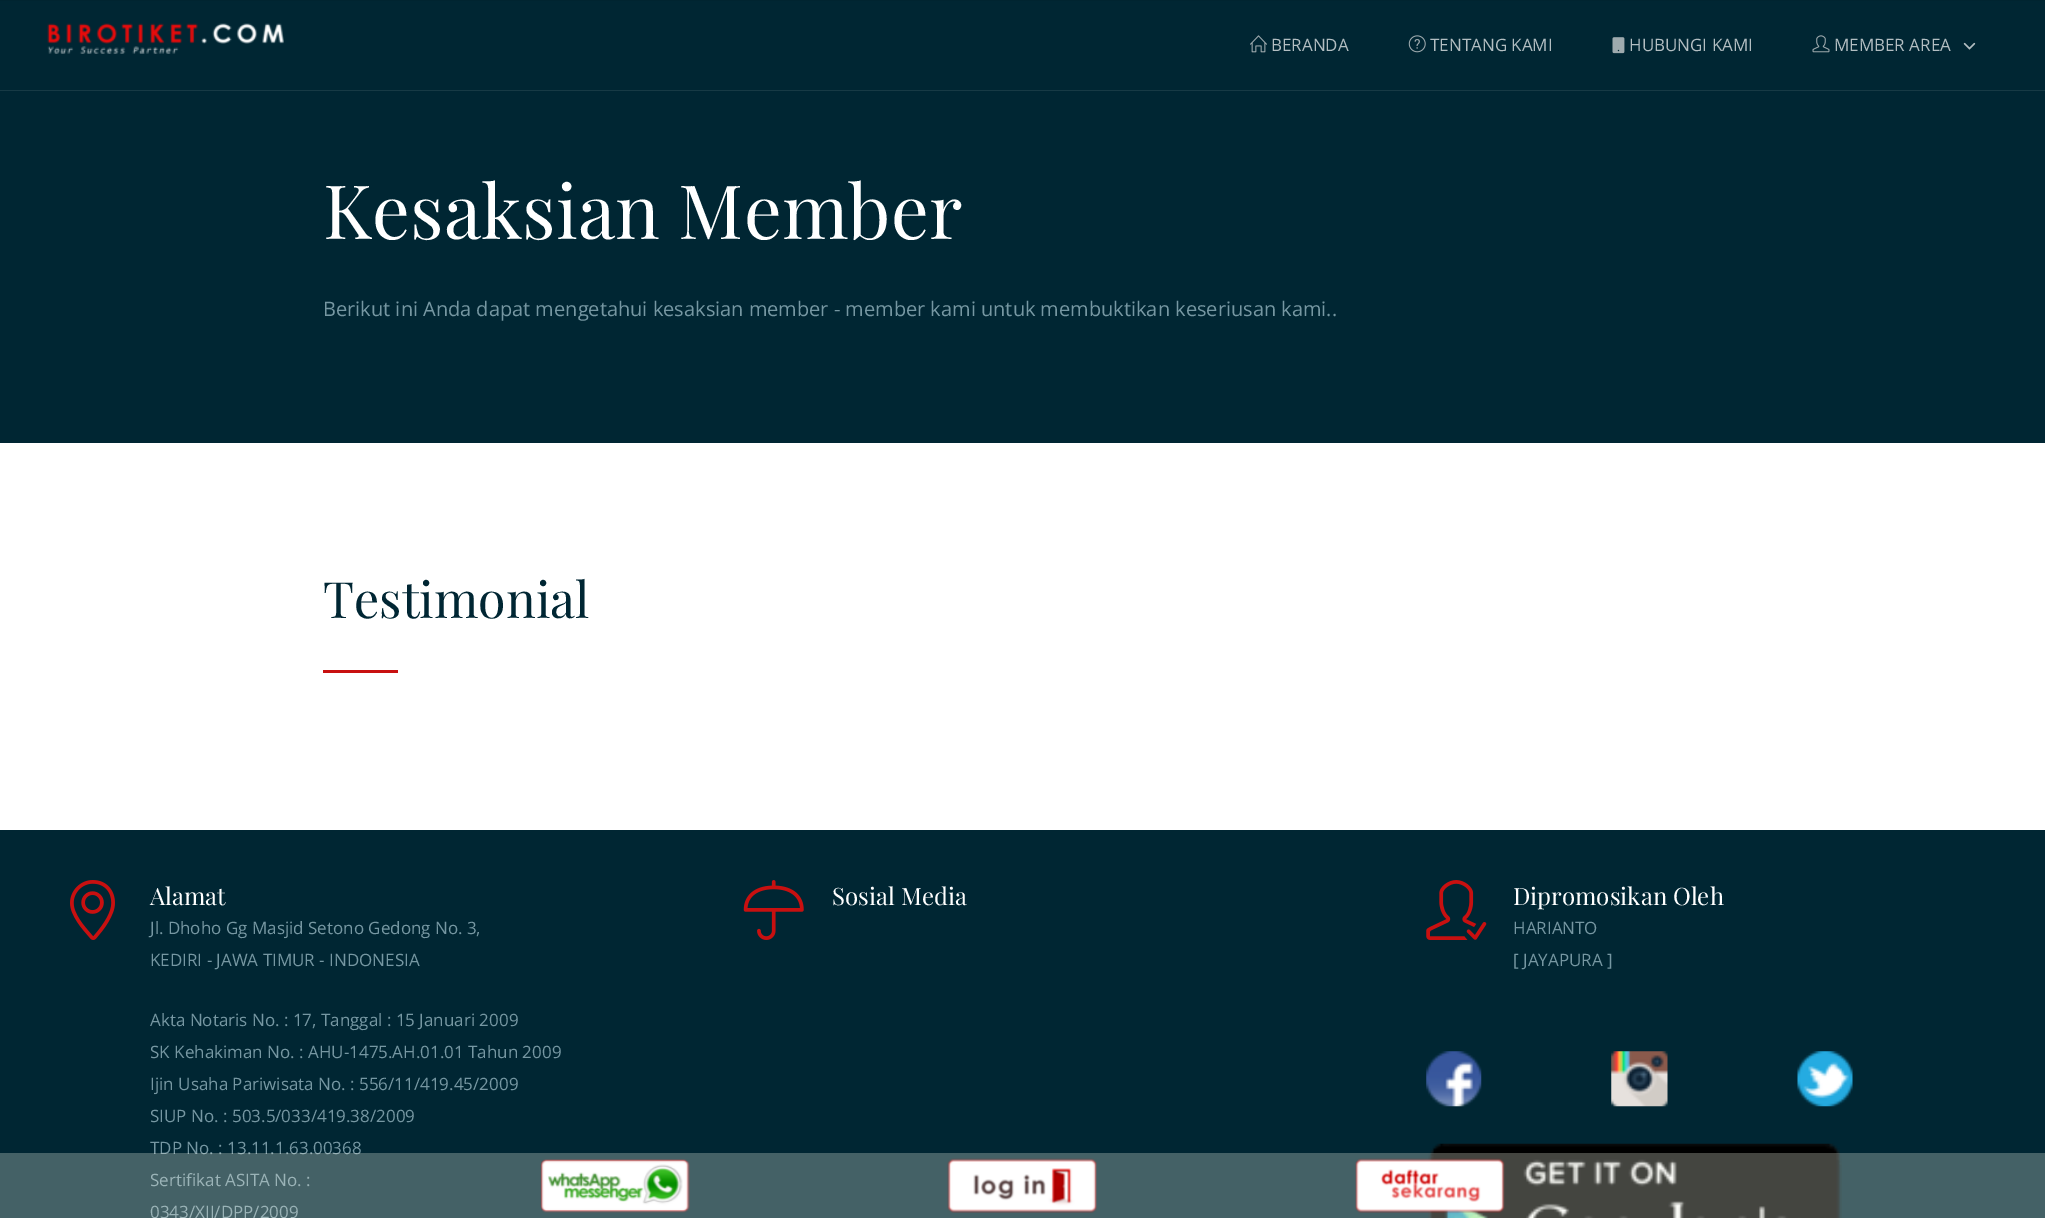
%!PS-Adobe-3.0
%%BoundingBox: 0 0 2045 1218
%%LanguageLevel: 3
%%Pages: 1
%%EndComments
%%BeginProlog
/fn { [ exch dup neg 0 0 3 -1 roll 0 0 ] selectfont } def
/tx { moveto show } def
/bx { rectfill } def
/al { dup .setfillconstantalpha .setstrokeconstantalpha } def
/im { 5 dict begin { /h /w /y /x /name } { exch def } forall
  gsave x y translate w h scale
  w h 8 [w 0 0 h 0 0] name (r) file false 3 colorimage grestore end } def
%%EndProlog
%%BeginSetup
<< /PageSize [2045 1218] /PageUsesTransparency true >> setpagedevice
%%EndSetup
%%Page: 1 1
0 .pushpdf14devicefilter
0 1218 translate 1 -1 scale
4 setmiterlimit
1 setgray
0 0 2045 1218 bx
0 0.141 0.188 setrgbcolor
0 0 2045 1 bx
0 0.149 0.2 setrgbcolor
0 1 2045 442 bx
0.09 0.227 0.271 setrgbcolor
0 90 2045 1 bx
(image0.raw) 47 23 237 31 im
(image1.raw) 1250 35 17 18 im
/OpenSans-Regular 17 fn
0.702 0.745 0.761 setrgbcolor
(BERANDA) 1271 51 tx
(image2.raw) 1408 35 18 18 im
(TENTANG KAMI) 1430 51 tx
(image3.raw) 1612 37 13 17 im
(HUBUNGI KAMI) 1629 51 tx
(image4.raw) 1812 35 18 18 im
(MEMBER AREA) 1834 51 tx
(image5.raw) 1963 42 13 8 im
/PlayfairDisplay-Regular 75 fn
1 setgray
(Kesaksian Member) 323 239 tx
/OpenSans-Regular 20 fn
0.463 0.592 0.635 setrgbcolor
(Berikut ini Anda dapat mengetahui kesaksian member - member kami untuk membuktikan keseriusan kami..) 323 316 tx
/PlayfairDisplay-Regular 50 fn
0 0.149 0.2 setrgbcolor
(Testimonial) 323 618 tx
0.784 0.063 0.063 setrgbcolor
323 670 75 3 bx
0 0.149 0.2 setrgbcolor
0 830 2045 388 bx
(image6.raw) 70 880 45 60 im
/PlayfairDisplay-Regular 24 fn
1 setgray
(Alamat) 150 905 tx
/OpenSans-Regular 17 fn
0.463 0.592 0.635 setrgbcolor
(Jl. Dhoho Gg Masjid Setono Gedong No. 3,) 150 934 tx
(KEDIRI - JAWA TIMUR - INDONESIA) 150 966 tx
(Akta Notaris No. : 17, Tanggal : 15 Januari 2009) 150 1026 tx
(SK Kehakiman No. : AHU-1475.AH.01.01 Tahun 2009) 150 1058 tx
(Ijin Usaha Pariwisata No. : 556/11/419.45/2009) 150 1090 tx
(SIUP No. : 503.5/033/419.38/2009) 150 1122 tx
(TDP No. : 13.11.1.63.00368) 150 1154 tx
(Sertifikat ASITA No. :) 150 1186 tx
(0343/XII/DPP/2009) 150 1218 tx
(image7.raw) 743 880 61 60 im
/PlayfairDisplay-Regular 24 fn
1 setgray
(Sosial Media) 832 905 tx
(image8.raw) 1426 880 61 60 im
(Dipromosikan Oleh) 1513 905 tx
/OpenSans-Regular 17 fn
0.463 0.592 0.635 setrgbcolor
(HARIANTO) 1513 934 tx
([ JAYAPURA ]) 1513 966 tx
(image9.raw) 1426 1051 56 56 im
(image10.raw) 1611 1051 57 56 im
(image11.raw) 1797 1051 56 56 im
(image12.raw) 1428 1143 414 75 im
0.27 al
0.988 1 0.933 setrgbcolor
0 1153 2045 65 bx
1 al
(image13.raw) 540 1159 150 54 im
(image14.raw) 947 1158 150 55 im
(image15.raw) 1355 1158 150 55 im
.poppdf14devicefilter showpage
%%EOF
